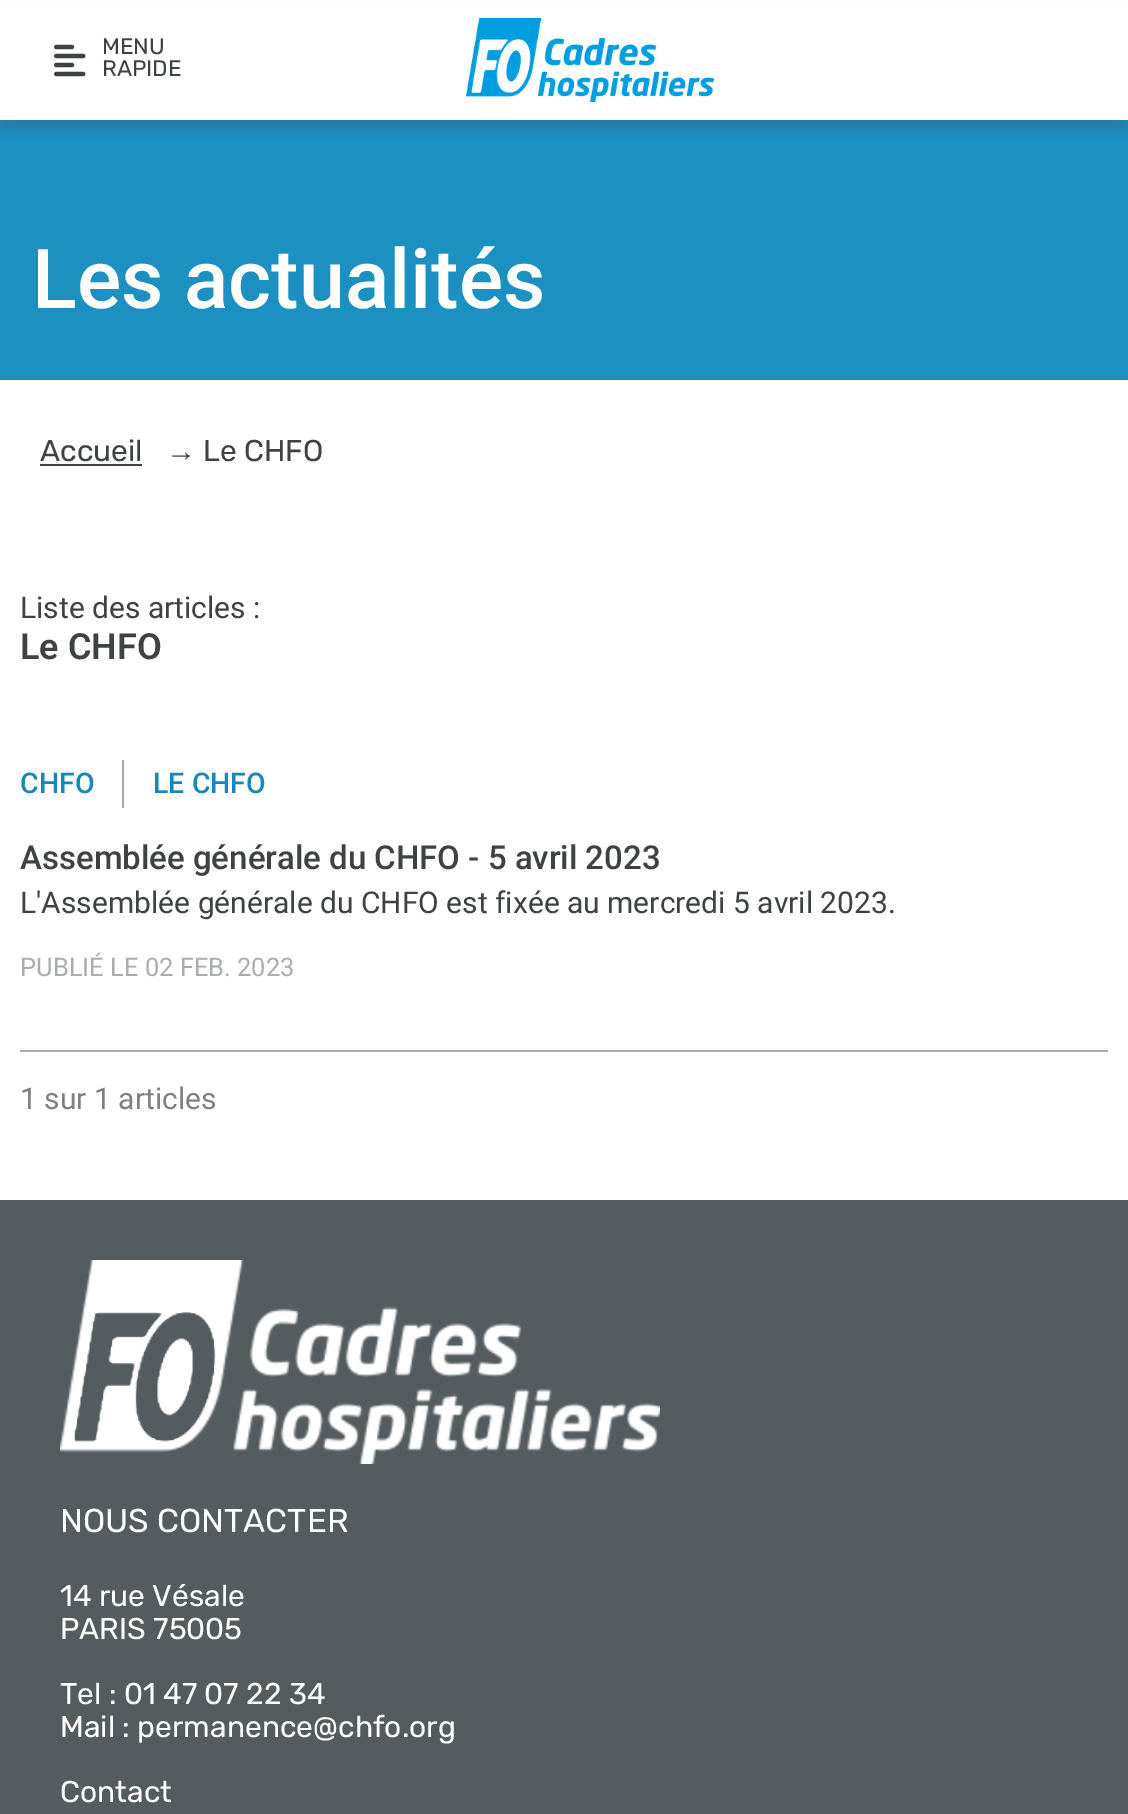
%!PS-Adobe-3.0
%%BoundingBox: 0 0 1128 1814
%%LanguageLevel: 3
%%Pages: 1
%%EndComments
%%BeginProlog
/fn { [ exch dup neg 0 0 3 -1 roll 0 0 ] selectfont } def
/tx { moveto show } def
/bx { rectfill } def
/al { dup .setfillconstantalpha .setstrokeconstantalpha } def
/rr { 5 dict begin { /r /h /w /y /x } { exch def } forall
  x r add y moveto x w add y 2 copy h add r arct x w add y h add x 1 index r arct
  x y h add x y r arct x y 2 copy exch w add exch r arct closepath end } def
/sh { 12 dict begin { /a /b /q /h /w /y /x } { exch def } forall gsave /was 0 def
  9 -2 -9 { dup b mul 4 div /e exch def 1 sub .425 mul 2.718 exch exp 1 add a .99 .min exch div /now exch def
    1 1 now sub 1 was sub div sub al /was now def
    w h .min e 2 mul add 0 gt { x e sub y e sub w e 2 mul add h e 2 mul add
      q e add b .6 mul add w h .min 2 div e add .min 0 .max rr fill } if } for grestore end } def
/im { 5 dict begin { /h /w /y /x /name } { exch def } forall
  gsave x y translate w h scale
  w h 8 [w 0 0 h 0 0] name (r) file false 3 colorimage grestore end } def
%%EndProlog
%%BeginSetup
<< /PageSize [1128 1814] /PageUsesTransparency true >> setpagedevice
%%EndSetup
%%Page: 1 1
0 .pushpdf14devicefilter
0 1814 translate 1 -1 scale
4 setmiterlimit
1 setgray
0 0 1128 1814 bx
0.106 0.565 0.757 setrgbcolor
0 120 1128 260 bx
0.243 0.259 0.267 setrgbcolor
0 10 1128 120 0 5 0.23 sh
1 setgray
0 2 1128 118 bx
(image0.raw) 54 44 32 33 im
/Rubik-Regular 22.5 fn
0.243 0.259 0.267 setrgbcolor
(MENU) 102 54 tx
(RAPIDE) 102 76 tx
(image1.raw) 466 18 248 84 im
/Roboto-Medium 82.5 fn
1 setgray
(Les actualités) 32 308 tx
/Rubik-Regular 30 fn
0.243 0.259 0.267 setrgbcolor
(Accueil) 40 461 tx
40 464 102 2 bx
/LiberationSans-Regular 30 fn
(→) 166 461 tx
/Rubik-Regular 30 fn
(Le CHFO) 203 461 tx
/Roboto-Regular 30 fn
(Liste des articles :) 20 618 tx
/Roboto-SemiBold 36 fn
(Le CHFO) 20 659 tx
0.671 0.678 0.678 setrgbcolor
20 1050 1088 2 bx
/Roboto-Medium 28.5 fn
0.086 0.533 0.722 setrgbcolor
(CHFO) 20 793 tx
0.671 0.678 0.678 setrgbcolor
122 760 2 48 bx
0.086 0.533 0.722 setrgbcolor
(LE CHFO) 153 793 tx
/Roboto-Medium 33 fn
0.243 0.259 0.267 setrgbcolor
(Assemblée générale du CHFO - 5 avril 2023) 20 869 tx
/Roboto-Regular 30 fn
(L'Assemblée générale du CHFO est fixée au mercredi 5 avril 2023.) 20 913 tx
/Roboto-Regular 25.5 fn
0.671 0.678 0.678 setrgbcolor
(PUBLIÉ LE 02 FEB. 2023) 20 976 tx
/Roboto-Regular 30 fn
0.502 setgray
(1 sur 1 articles) 20 1109 tx
0.329 0.361 0.376 setrgbcolor
0 1200 1128 614 bx
(image2.raw) 60 1260 600 204 im
/Rubik-Regular 33 fn
1 setgray
(NOUS CONTACTER) 60 1532 tx
/Rubik-Regular 30 fn
(14 rue Vésale) 60 1606 tx
(PARIS 75005) 60 1639 tx
(Tel : 01 47 07 22 34) 60 1704 tx
(Mail : permanence@chfo.org) 60 1737 tx
(Contact) 60 1802 tx
.poppdf14devicefilter showpage
%%EOF
